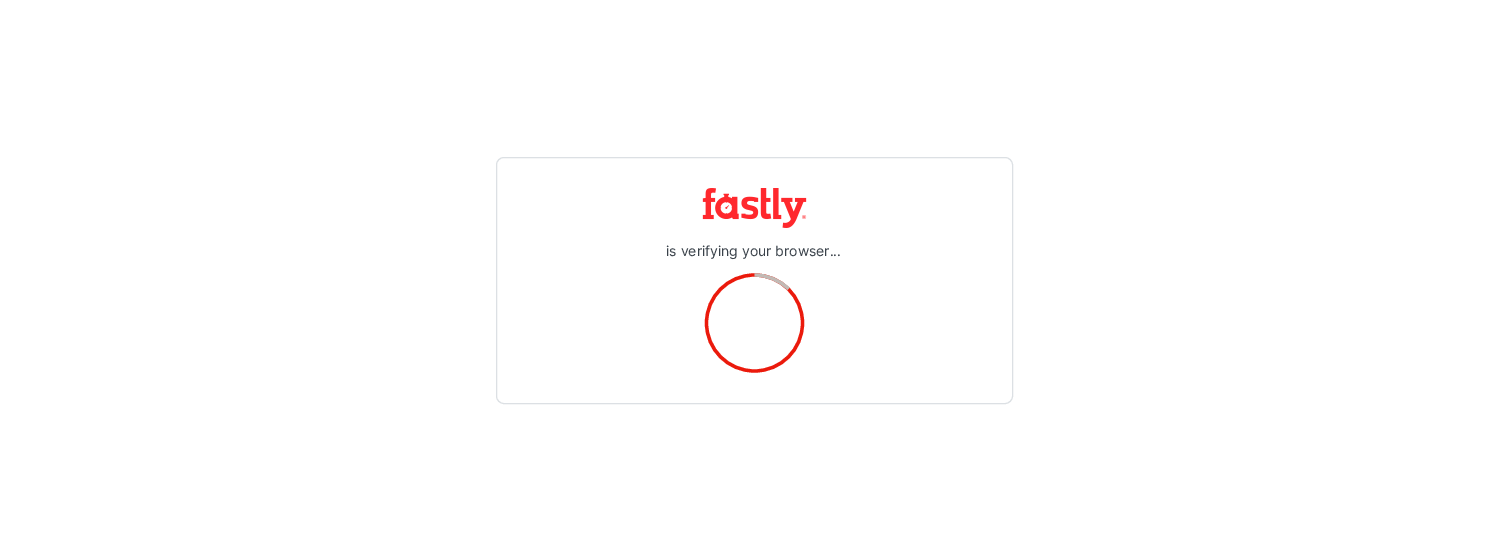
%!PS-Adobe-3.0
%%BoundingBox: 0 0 1508 560
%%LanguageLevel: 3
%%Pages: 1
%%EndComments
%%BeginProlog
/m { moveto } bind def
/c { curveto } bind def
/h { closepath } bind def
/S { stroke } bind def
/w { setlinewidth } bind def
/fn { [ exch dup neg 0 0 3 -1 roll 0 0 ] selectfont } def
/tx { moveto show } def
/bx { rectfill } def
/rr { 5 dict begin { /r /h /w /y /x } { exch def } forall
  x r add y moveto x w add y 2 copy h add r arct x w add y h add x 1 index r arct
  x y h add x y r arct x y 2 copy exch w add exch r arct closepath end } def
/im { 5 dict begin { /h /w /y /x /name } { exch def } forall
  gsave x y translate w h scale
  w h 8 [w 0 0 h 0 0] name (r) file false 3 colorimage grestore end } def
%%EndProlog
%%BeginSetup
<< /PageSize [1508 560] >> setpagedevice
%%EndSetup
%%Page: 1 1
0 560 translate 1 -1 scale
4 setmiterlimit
1 setgray
0 0 1508 560 bx
0.863 0.878 0.894 setrgbcolor
496.5 157.5 516 246 7.5 rr S
(image0.raw) 702 188 105 40 im
/Inter-Regular 14 fn
0.227 0.259 0.29 setrgbcolor
(is verifying your browser...) 666 256 tx
0.922 0.102 0.047 setrgbcolor
3.3 w
706.5 323 m 706.5 296.5 728 275 754.5 275 c 781 275 802.5 296.5 802.5 323 c 802.5 349.5 781 371 754.5 371 c 728 371 706.5 349.5 706.5 323 c h S
0.761 0.729 0.71 setrgbcolor
788.5 289 m 779.5 280 767 275 754.5 275 c S
showpage
%%EOF
